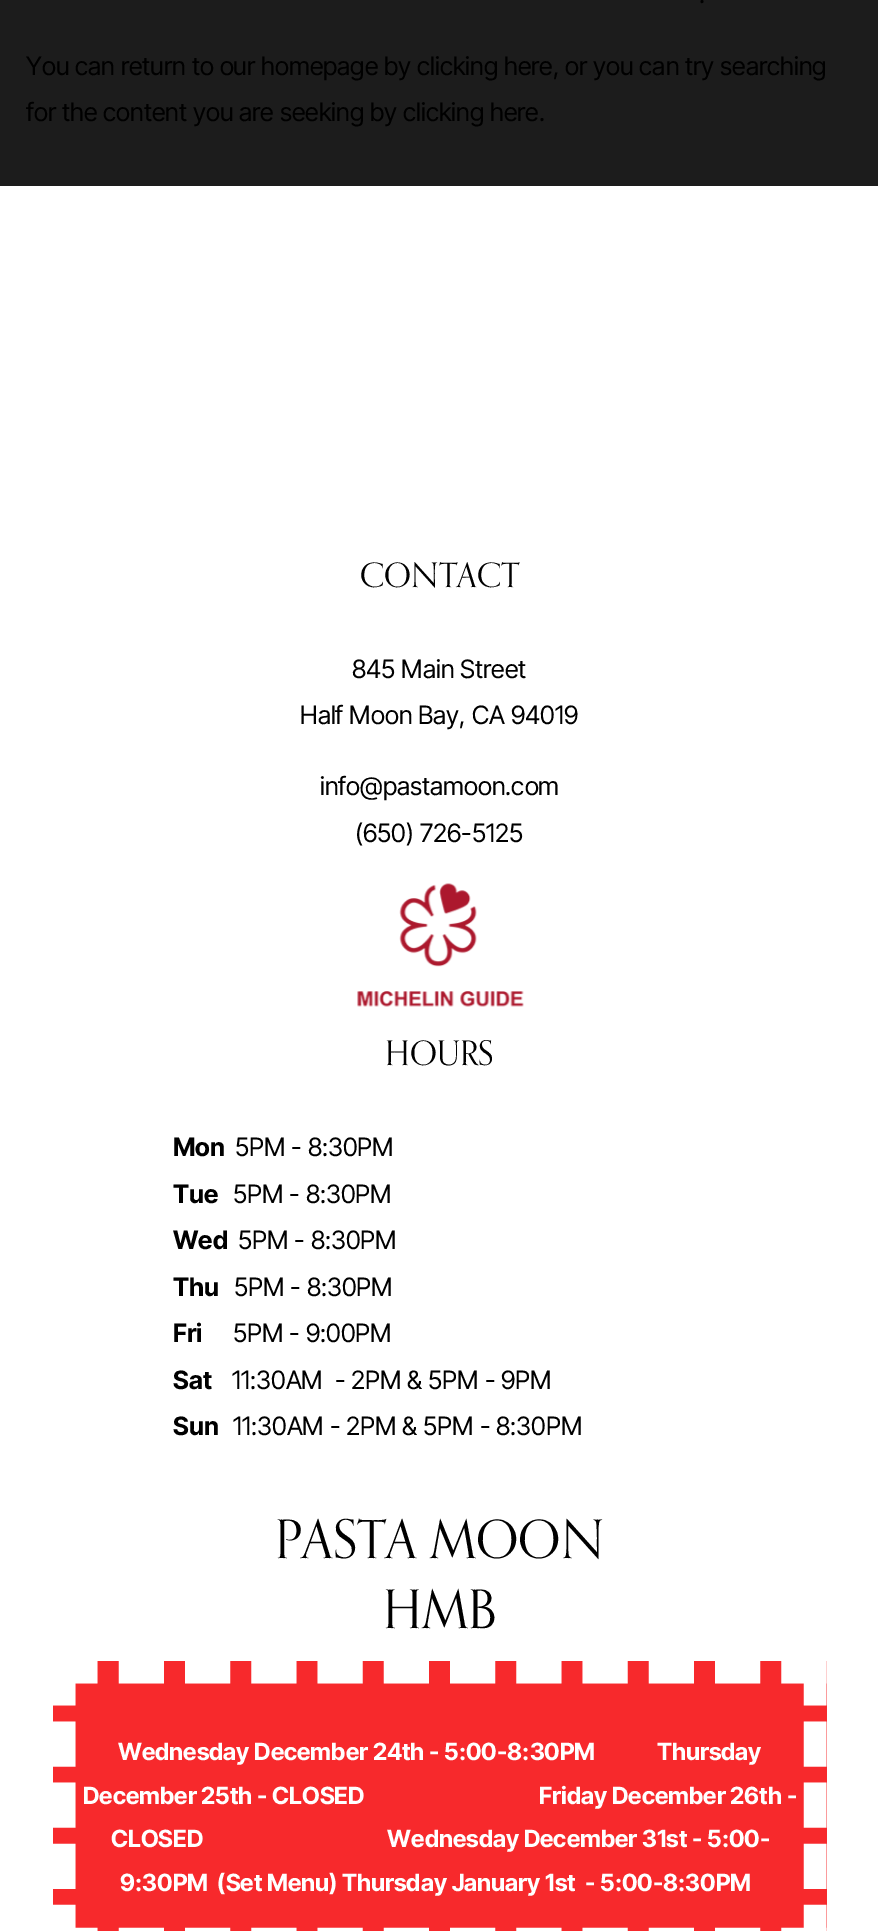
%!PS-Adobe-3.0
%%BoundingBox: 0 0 878 1931
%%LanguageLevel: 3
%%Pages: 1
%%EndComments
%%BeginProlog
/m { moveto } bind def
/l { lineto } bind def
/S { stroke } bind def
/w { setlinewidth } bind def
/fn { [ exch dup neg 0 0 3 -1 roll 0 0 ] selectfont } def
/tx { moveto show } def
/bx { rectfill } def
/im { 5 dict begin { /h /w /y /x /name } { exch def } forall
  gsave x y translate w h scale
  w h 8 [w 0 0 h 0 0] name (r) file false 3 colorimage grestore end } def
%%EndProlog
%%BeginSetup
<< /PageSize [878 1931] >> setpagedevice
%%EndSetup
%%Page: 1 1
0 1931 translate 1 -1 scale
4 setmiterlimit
0.11 setgray
0 0 878 1931 bx
/InterTight-Regular 25.3 fn
0 setgray
(.) 699 3 tx
(You can return to our homepage by clicking here, or you can try searching) 26 75 tx
(for the content you are seeking by clicking here.) 26 121 tx
1 setgray
0 186 878 1745 bx
/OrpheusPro-Regular 33.75 fn
0 setgray
(CONTACT) 360 587 tx
/InterTight-Regular 25.3 fn
(845 Main Street) 352 678 tx
(Half Moon Bay, CA 94019) 300 724 tx
(info@pastamoon.com) 320 795 tx
(\(650\) 726-5125) 355 842 tx
(image0.raw) 357 883 167 124 im
/OrpheusPro-Regular 33.75 fn
(HOURS) 385 1065 tx
/InterTight-Bold 25.3 fn
(Mon) 173 1156 tx
/InterTight-Regular 25.3 fn
(5PM - 8:30PM) 235 1156 tx
/InterTight-Bold 25.3 fn
(Tue) 173 1203 tx
/InterTight-Regular 25.3 fn
(5PM - 8:30PM) 233 1203 tx
/InterTight-Bold 25.3 fn
(Wed) 173 1249 tx
/InterTight-Regular 25.3 fn
(5PM - 8:30PM) 238 1249 tx
/InterTight-Bold 25.3 fn
(Thu) 173 1296 tx
/InterTight-Regular 25.3 fn
(5PM - 8:30PM) 234 1296 tx
/InterTight-Bold 25.3 fn
(Fri) 173 1342 tx
/InterTight-Regular 25.3 fn
(5PM - 9:00PM) 233 1342 tx
/InterTight-Bold 25.3 fn
(Sat) 173 1389 tx
/InterTight-Regular 25.3 fn
(11:30AM  - 2PM & 5PM - 9PM) 232 1389 tx
/InterTight-Bold 25.3 fn
(Sun) 173 1435 tx
/InterTight-Regular 25.3 fn
(11:30AM - 2PM & 5PM - 8:30PM) 233 1435 tx
/OrpheusPro-Regular 53 fn
(PASTA MOON) 275 1558 tx
(HMB) 383 1628 tx
0.969 0.161 0.173 setrgbcolor
53 1661 774 270 bx
1 setgray
22.5 w
[45 21.27] 0 setdash
52.5 1672 m 826.5 1672 l S
[45 16.12] 0 setdash
815 1660.5 m 815 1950 l S
[45 21.27] 0 setdash
52.5 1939 m 826.5 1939 l S
[45 16.12] 0 setdash
64 1660.5 m 64 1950 l S
/InterTight-Bold 23.7 fn
(Wednesday December 24th - 5:00-8:30PM             Thursday) 118 1760 tx
(December 25th - CLOSED                                     Friday December 26th -) 83 1804 tx
(CLOSED                                       Wednesday December 31st - 5:00-) 111 1847 tx
(9:30PM  \(Set Menu\) Thursday January 1st  - 5:00-8:30PM) 120 1891 tx
showpage
%%EOF
